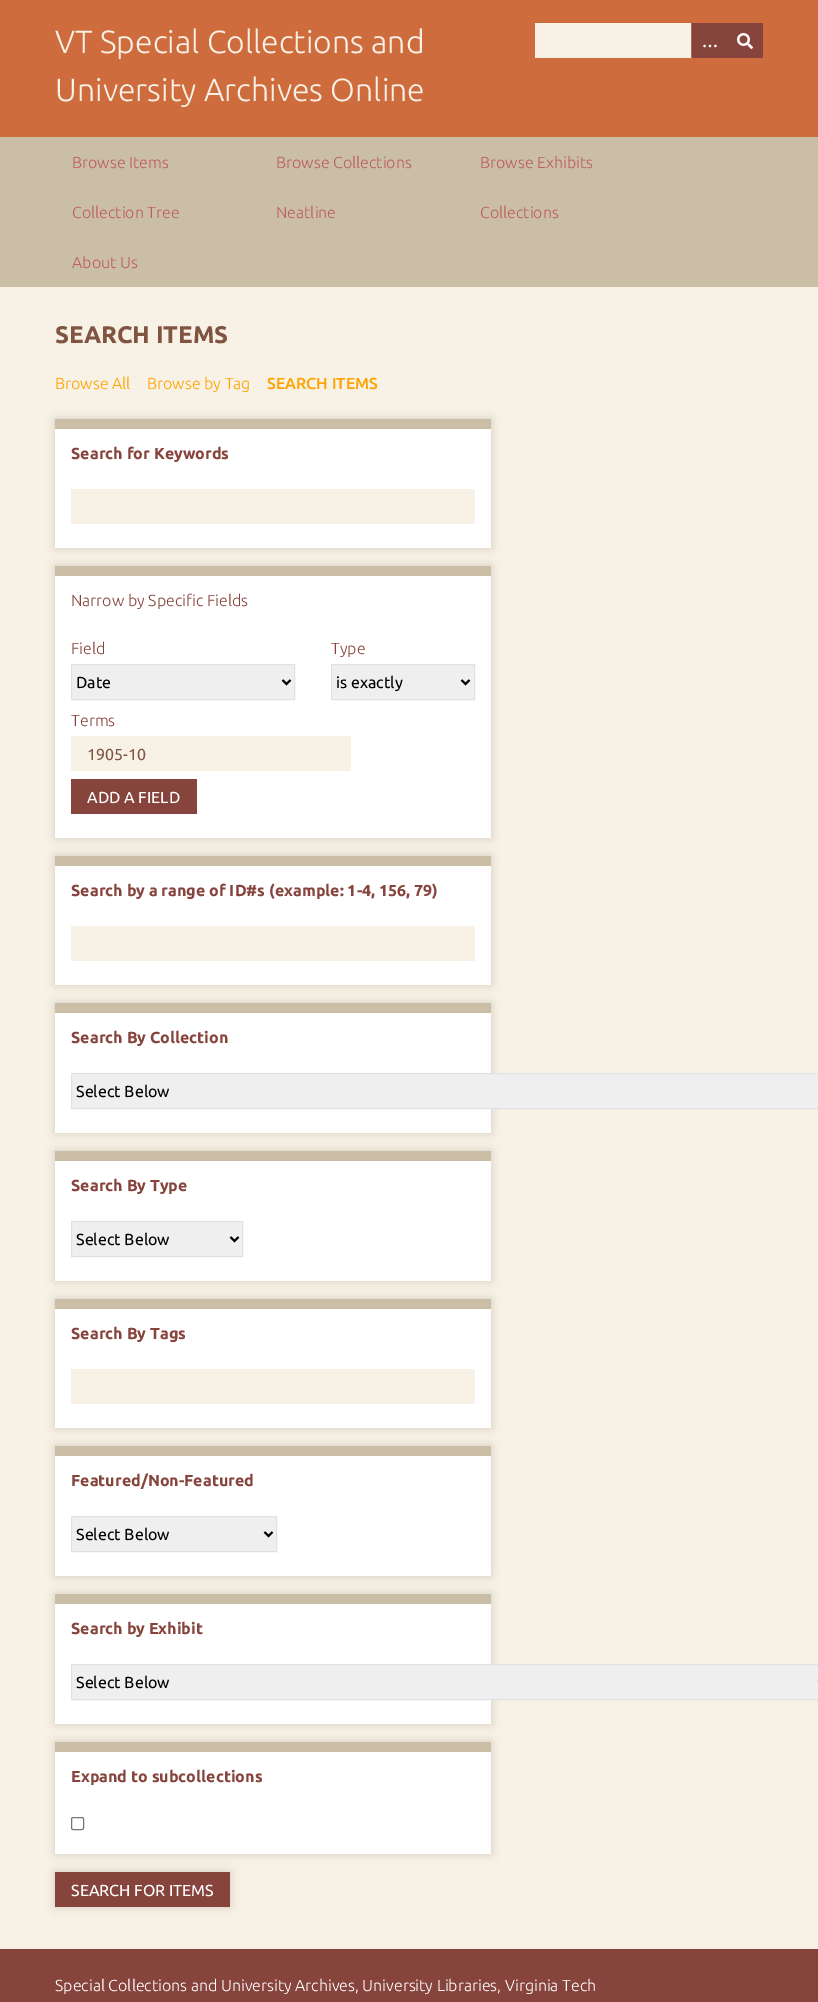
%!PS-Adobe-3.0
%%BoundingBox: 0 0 818 2002
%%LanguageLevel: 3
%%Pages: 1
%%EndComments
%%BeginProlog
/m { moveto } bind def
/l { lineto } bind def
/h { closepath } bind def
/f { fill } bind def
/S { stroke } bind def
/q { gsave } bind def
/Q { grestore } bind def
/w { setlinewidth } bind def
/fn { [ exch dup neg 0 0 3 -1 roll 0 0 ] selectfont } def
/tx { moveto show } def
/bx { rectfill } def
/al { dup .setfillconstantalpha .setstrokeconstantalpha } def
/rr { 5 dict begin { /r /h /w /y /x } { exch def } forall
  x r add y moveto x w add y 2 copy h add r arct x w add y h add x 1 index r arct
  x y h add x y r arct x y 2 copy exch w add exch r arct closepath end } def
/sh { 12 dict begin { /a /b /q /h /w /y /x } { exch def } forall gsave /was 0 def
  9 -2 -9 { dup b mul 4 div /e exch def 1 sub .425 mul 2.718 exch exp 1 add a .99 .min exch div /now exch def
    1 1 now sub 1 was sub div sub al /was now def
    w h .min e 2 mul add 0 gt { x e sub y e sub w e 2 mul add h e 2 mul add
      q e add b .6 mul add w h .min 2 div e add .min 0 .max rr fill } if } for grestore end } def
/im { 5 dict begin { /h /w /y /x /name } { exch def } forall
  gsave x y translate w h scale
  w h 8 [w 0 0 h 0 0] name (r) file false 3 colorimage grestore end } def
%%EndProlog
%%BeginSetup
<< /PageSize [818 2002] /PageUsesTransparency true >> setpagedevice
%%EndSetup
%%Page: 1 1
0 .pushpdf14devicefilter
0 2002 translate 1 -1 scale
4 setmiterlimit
0.525 0.267 0.235 setrgbcolor
0 0 818 2002 bx
0.808 0.424 0.243 setrgbcolor
0 0 818 137 bx
0.847 0.537 0.396 setrgbcolor
691 58 1 1 bx
/Ubuntu-Light 32 fn
0.973 0.945 0.898 setrgbcolor
(VT Special Collections and) 55 53 tx
(University Archives Online) 55 101 tx
535 23 156 35 bx
0.525 0.267 0.235 setrgbcolor
692 23 71 35 bx
0.62 0.412 0.388 setrgbcolor
691 23 1 35 bx
/LiberationSerif-Bold 16 fn
1 setgray
(…) 702 47 tx
(image0.raw) 737 33 16 16 im
0.792 0.749 0.651 setrgbcolor
0 137 818 150 bx
/Ubuntu-Light 16 fn
0.745 0.369 0.369 setrgbcolor
(Browse Items) 72 168 tx
(Browse Collections) 276 168 tx
(Browse Exhibits) 480 168 tx
(Collection Tree) 72 218 tx
(Neatline) 276 218 tx
(Collections) 480 218 tx
(About Us) 72 268 tx
0.973 0.945 0.898 setrgbcolor
0 287 818 1662 bx
/Ubuntu-Bold 24 fn
0.506 0.329 0.259 setrgbcolor
(SEARCH ITEMS) 55 343 tx
/Ubuntu-Light 16 fn
1 0.639 0 setrgbcolor
(Browse All) 55 389 tx
(Browse by Tag) 147 389 tx
/Ubuntu-Medium 16 fn
(SEARCH ITEMS) 267 389 tx
0 setgray
55 419 436 129 0 5 0.15 sh
1 setgray
55 429 436 119 bx
0.792 0.749 0.651 setrgbcolor
55 419 436 10 bx
/Ubuntu-Bold 16 fn
0.525 0.267 0.235 setrgbcolor
(Search for Keywords) 71 459 tx
0.973 0.945 0.898 setrgbcolor
71 489 404 35 bx
0 setgray
55 566 436 272 0 5 0.15 sh
1 setgray
55 576 436 262 bx
0.792 0.749 0.651 setrgbcolor
55 566 436 10 bx
/Ubuntu-Light 16 fn
0.525 0.267 0.235 setrgbcolor
(Narrow by Specific Fields) 71 606 tx
(Field) 71 654 tx
0.937 setgray
71.5 664.5 m 294.5 664.5 l 294.5 699.5 l 71.5 699.5 l h q f Q
0.875 0.886 0.886 setrgbcolor
S
0 setgray
2 w
282.5 680 m 286.5 684 l 290.5 680 l S
/Ubuntu-Regular 16 fn
(Date) 76 688 tx
/Ubuntu-Light 16 fn
0.525 0.267 0.235 setrgbcolor
(Type) 331 654 tx
0.937 setgray
331.5 664.5 m 474.5 664.5 l 474.5 699.5 l 331.5 699.5 l h q f Q
0.875 0.886 0.886 setrgbcolor
1 w
S
0 setgray
2 w
461.5 680 m 465.5 684 l 469.5 680 l S
/Ubuntu-Regular 16 fn
(is exactly) 336 688 tx
/Ubuntu-Light 16 fn
0.525 0.267 0.235 setrgbcolor
(Terms) 71 726 tx
0.973 0.945 0.898 setrgbcolor
71 736 280 35 bx
/Ubuntu-Regular 16 fn
0.506 0.329 0.259 setrgbcolor
(1905-10) 87 760 tx
0.525 0.267 0.235 setrgbcolor
71 779 126 35 bx
1 setgray
(ADD A FIELD) 87 803 tx
0 setgray
55 856 436 129 0 5 0.15 sh
1 setgray
55 866 436 119 bx
0.792 0.749 0.651 setrgbcolor
55 856 436 10 bx
/Ubuntu-Bold 16 fn
0.525 0.267 0.235 setrgbcolor
(Search by a range of ID#s \(example: 1-4, 156, 79\)) 71 896 tx
0.973 0.945 0.898 setrgbcolor
71 926 404 35 bx
0 setgray
55 1003 436 130 0 5 0.15 sh
1 setgray
55 1013 436 120 bx
0.792 0.749 0.651 setrgbcolor
55 1003 436 10 bx
0.525 0.267 0.235 setrgbcolor
(Search By Collection) 71 1043 tx
0.937 setgray
71.5 1073.5 m 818.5 1073.5 l 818.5 1108.5 l 71.5 1108.5 l h q f Q
0.875 0.886 0.886 setrgbcolor
1 w
S
/Ubuntu-Regular 16 fn
0 setgray
(Select Below) 76 1097 tx
55 1151 436 130 0 5 0.15 sh
1 setgray
55 1161 436 120 bx
0.792 0.749 0.651 setrgbcolor
55 1151 436 10 bx
/Ubuntu-Bold 16 fn
0.525 0.267 0.235 setrgbcolor
(Search By Type) 71 1191 tx
0.937 setgray
71.5 1221.5 m 242.5 1221.5 l 242.5 1256.5 l 71.5 1256.5 l h q f Q
0.875 0.886 0.886 setrgbcolor
S
0 setgray
2 w
230.5 1237 m 234.5 1241 l 238.5 1237 l S
/Ubuntu-Regular 16 fn
(Select Below) 76 1245 tx
55 1299 436 129 0 5 0.15 sh
1 setgray
55 1309 436 119 bx
0.792 0.749 0.651 setrgbcolor
55 1299 436 10 bx
/Ubuntu-Bold 16 fn
0.525 0.267 0.235 setrgbcolor
(Search By Tags) 71 1339 tx
0.973 0.945 0.898 setrgbcolor
71 1369 404 35 bx
0 setgray
55 1446 436 130 0 5 0.15 sh
1 setgray
55 1456 436 120 bx
0.792 0.749 0.651 setrgbcolor
55 1446 436 10 bx
0.525 0.267 0.235 setrgbcolor
(Featured/Non-Featured) 71 1486 tx
0.937 setgray
71.5 1516.5 m 276.5 1516.5 l 276.5 1551.5 l 71.5 1551.5 l h q f Q
0.875 0.886 0.886 setrgbcolor
1 w
S
0 setgray
2 w
264.5 1532 m 268.5 1536 l 272.5 1532 l S
/Ubuntu-Regular 16 fn
(Select Below) 76 1540 tx
55 1594 436 130 0 5 0.15 sh
1 setgray
55 1604 436 120 bx
0.792 0.749 0.651 setrgbcolor
55 1594 436 10 bx
/Ubuntu-Bold 16 fn
0.525 0.267 0.235 setrgbcolor
(Search by Exhibit) 71 1634 tx
0.937 setgray
71.5 1664.5 m 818.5 1664.5 l 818.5 1699.5 l 71.5 1699.5 l h q f Q
0.875 0.886 0.886 setrgbcolor
1 w
S
0 setgray
2 w
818.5 1680 m 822.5 1684 l 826.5 1680 l S
/Ubuntu-Regular 16 fn
(Select Below) 76 1688 tx
55 1742 436 112 0 5 0.15 sh
1 setgray
55 1752 436 102 bx
0.792 0.749 0.651 setrgbcolor
55 1742 436 10 bx
/Ubuntu-Bold 16 fn
0.525 0.267 0.235 setrgbcolor
(Expand to subcollections) 71 1782 tx
0.463 setgray
1 w
71.5 1817.5 12 12 1.5 rr S
0 setgray
55 1872 175 35 0 5 0.15 sh
0.525 0.267 0.235 setrgbcolor
55 1872 175 35 bx
/Ubuntu-Regular 16 fn
1 setgray
(SEARCH FOR ITEMS) 71 1896 tx
/Ubuntu-Light 16 fn
(Special Collections and University Archives, University Libraries, Virginia Tech) 55 1991 tx
.poppdf14devicefilter showpage
%%EOF
